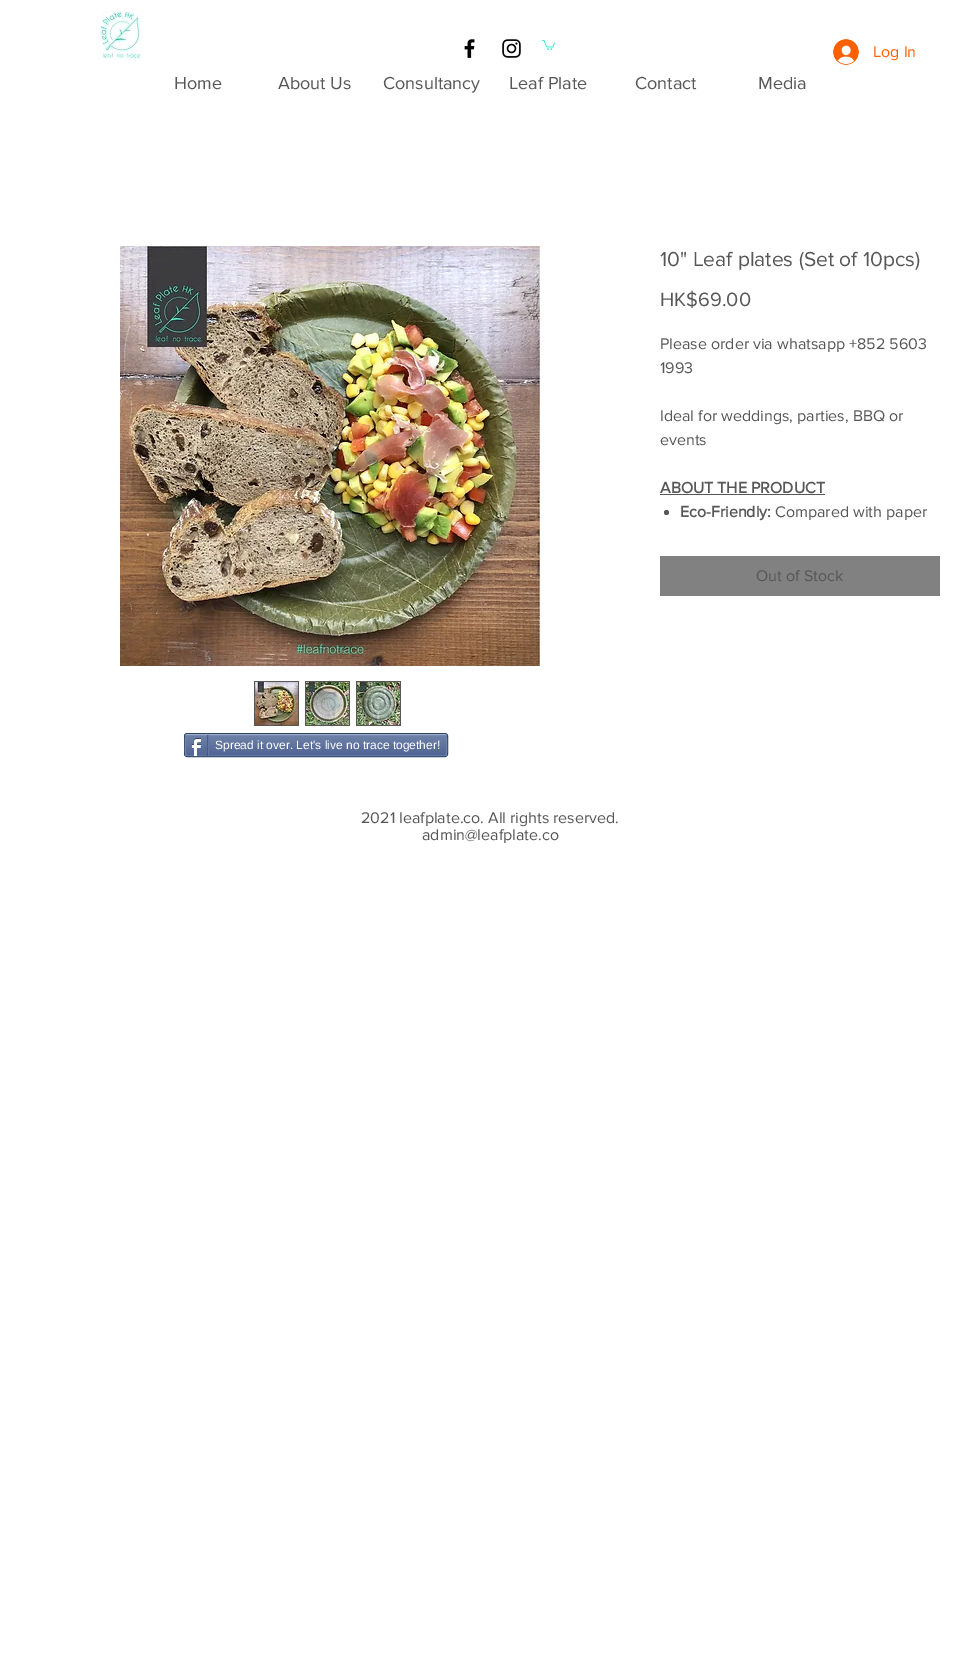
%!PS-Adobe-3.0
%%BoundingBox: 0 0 965 1664
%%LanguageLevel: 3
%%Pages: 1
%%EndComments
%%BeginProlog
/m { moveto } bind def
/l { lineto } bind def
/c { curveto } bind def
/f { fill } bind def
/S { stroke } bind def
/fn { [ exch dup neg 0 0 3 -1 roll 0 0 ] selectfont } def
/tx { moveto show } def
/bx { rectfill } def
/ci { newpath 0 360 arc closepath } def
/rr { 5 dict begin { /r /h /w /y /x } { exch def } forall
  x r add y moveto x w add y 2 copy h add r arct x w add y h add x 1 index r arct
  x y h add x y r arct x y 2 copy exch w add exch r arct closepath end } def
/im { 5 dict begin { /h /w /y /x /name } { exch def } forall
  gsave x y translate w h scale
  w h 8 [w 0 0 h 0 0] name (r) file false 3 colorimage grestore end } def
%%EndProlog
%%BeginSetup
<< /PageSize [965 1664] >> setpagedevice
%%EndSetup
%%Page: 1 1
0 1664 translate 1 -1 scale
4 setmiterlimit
1 setgray
0 0 965 1664 bx
(image0.raw) 95 11 48 49 im
(image1.raw) 464 39 11 20 im
(image2.raw) 502 39 19 19 im
(image3.raw) 542 40 13 10 im
(image4.raw) 833 39 26 26 im
/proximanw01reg-Regular 16 fn
0.988 0.376 0 setrgbcolor
(Log In) 873 57 tx
/proximanw01reg-Regular 18 fn
0.341 setgray
(Home) 174 89 tx
(About Us) 278 89 tx
(Consultancy) 383 89 tx
(Leaf Plate) 509 89 tx
(Contact) 635 89 tx
(Media) 758 89 tx
(image5.raw) 120 246 420 420 im
254 681 45 45 bx
(image6.raw) 255 682 43 43 im
305 681 45 45 bx
(image7.raw) 306 682 43 43 im
356 681 45 45 bx
(image8.raw) 357 682 43 43 im
/proximanw01reg-Regular 21 fn
(10" Leaf plates \(Set of 10pcs\)) 660 266 tx
/proximanw01reg-Regular 20 fn
(HK$69.00) 660 306 tx
/proximanw01reg-Regular 16 fn
(Please order via whatsapp +852 5603) 660 349 tx
(1993) 660 373 tx
(Ideal for weddings, parties, BBQ or) 660 421 tx
(events) 660 445 tx
/proximanw01reg-Bold 16 fn
(ABOUT THE PRODUCT) 660 493 tx
660 494 165 1 bx
666.5 512.5 2.5 ci f
(Eco-Friendly:) 680 517 tx
/proximanw01reg-Regular 16 fn
(Compared with paper) 775 517 tx
0.506 setgray
660 556 280 40 bx
0.341 setgray
(Out of Stock) 756 581 tx
0.176 0.271 0.396 setrgbcolor
184.5 733.5 263 23 2.5 rr S
(image9.raw) 185 735 262 21 im
0.604 0.671 0.776 setrgbcolor
186 735 m 187 734.5 l 445 734.5 l 446 735 l S
0.435 0.514 0.678 setrgbcolor
446 735 m 447 735.5 447 754.5 446 755 c S
0.38 0.463 0.639 setrgbcolor
446 755 m 445 755.5 l 187 755.5 l 186 755 l S
0.435 0.514 0.678 setrgbcolor
186 755 m 185 754.5 185 735.5 186 735 c S
(image10.raw) 191 738 10 18 im
0.259 0.369 0.522 setrgbcolor
207 735 1 21 bx
/LiberationSans-Regular 12 fn
1 setgray
(Spread it over. Let's live no trace together!) 215 749 tx
0.38 0.463 0.639 setrgbcolor
208 735 1 20 bx
/proximanw01reg-Regular 16 fn
0.341 setgray
(2021 leafplate.co. All rights reserved.) 361 823 tx
(admin@leafplate.co) 422 840 tx
showpage
%%EOF
